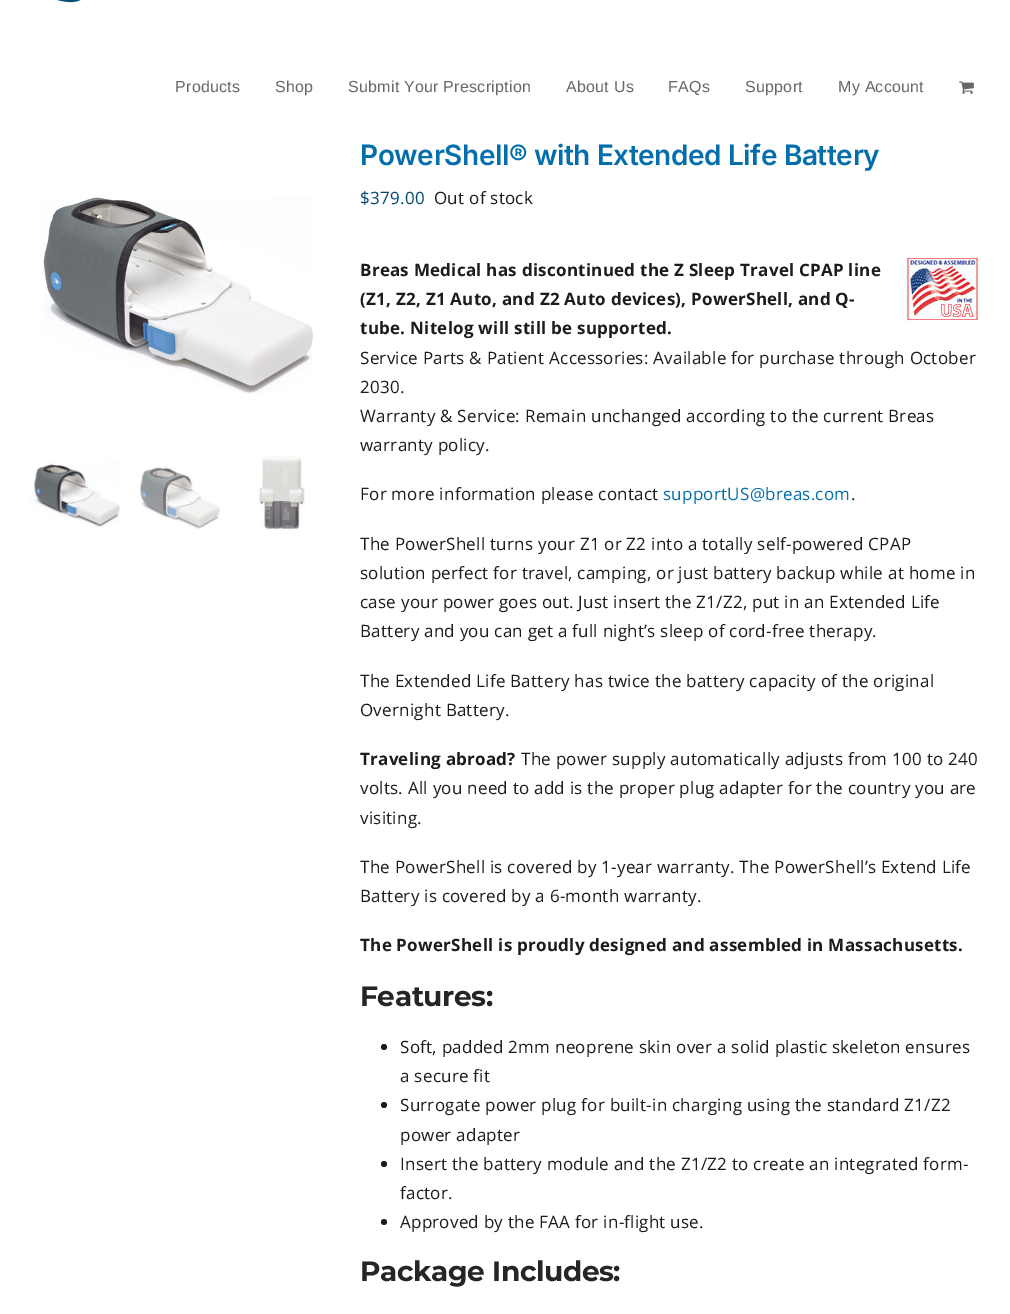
%!PS-Adobe-3.0
%%BoundingBox: 0 0 1010 1314
%%LanguageLevel: 3
%%Pages: 1
%%EndComments
%%BeginProlog
/m { moveto } bind def
/f { fill } bind def
/fn { [ exch dup neg 0 0 3 -1 roll 0 0 ] selectfont } def
/bx { rectfill } def
/ci { newpath 0 360 arc closepath } def
/im { 5 dict begin { /h /w /y /x /name } { exch def } forall
  gsave x y translate w h scale
  w h 8 [w 0 0 h 0 0] name (r) file false 3 colorimage grestore end } def
%%EndProlog
%%BeginSetup
<< /PageSize [1010 1314] >> setpagedevice
%%EndSetup
%%Page: 1 1
0 1314 translate 1 -1 scale
4 setmiterlimit
1 setgray
0 0 1010 1314 bx
(image0.raw) 57 0 24 3 im
/LiberationSans-Regular 16 fn
0.408 setgray
175 92 m 0.25 0 (Products) ashow
275 92 m 0.25 0 (Shop) ashow
348 92 m 0.25 0 (Submit Your Prescription) ashow
566 92 m 0.25 0 (About Us) ashow
668 92 m 0.25 0 (FAQs) ashow
745 92 m 0.25 0 (Support) ashow
838 92 m 0.25 0 (My Account) ashow
(image1.raw) 959 81 15 13 im
(image2.raw) 43 197 270 197 im
(image3.raw) 30 461 91 67 im
(image4.raw) 139 467 81 62 im
(image5.raw) 258 454 47 76 im
/Inter-SemiBold 28 fn
0.012 0.431 0.675 setrgbcolor
360 165 m -0.4 0 (PowerShell® with Extended Life Battery) ashow
/OpenSans-Regular 17 fn
0 0.275 0.439 setrgbcolor
360 204 m 0.25 0 ($379.00) ashow
0.11 setgray
434 204 m 0.25 0 (Out of stock) ashow
(image6.raw) 905 255 75 68 im
/OpenSans-Bold 17 fn
360 276 m 0.25 0 (Breas Medical has discontinued the Z Sleep Travel CPAP line) ashow
360 305 m 0.25 0 (\(Z1, Z2, Z1 Auto, and Z2 Auto devices\), PowerShell, and Q-) ashow
360 334 m 0.25 0 (tube. Nitelog will still be supported.) ashow
/OpenSans-Regular 17 fn
360 364 m 0.25 0 (Service Parts & Patient Accessories: Available for purchase through October) ashow
360 393 m 0.25 0 (2030.) ashow
360 422 m 0.25 0 (Warranty & Service: Remain unchanged according to the current Breas) ashow
360 451 m 0.25 0 (warranty policy.) ashow
360 500 m 0.25 0 (For more information please contact) ashow
0.012 0.431 0.675 setrgbcolor
663 500 m 0.25 0 (supportUS@breas.com) ashow
0.11 setgray
851 500 m 0.25 0 (.) ashow
360 550 m 0.25 0 (The PowerShell turns your Z1 or Z2 into a totally self-powered CPAP) ashow
360 579 m 0.25 0 (solution perfect for travel, camping, or just battery backup while at home in) ashow
360 608 m 0.25 0 (case your power goes out. Just insert the Z1/Z2, put in an Extended Life) ashow
360 637 m 0.25 0 (Battery and you can get a full night’s sleep of cord-free therapy.) ashow
360 687 m 0.25 0 (The Extended Life Battery has twice the battery capacity of the original) ashow
360 716 m 0.25 0 (Overnight Battery.) ashow
/OpenSans-Bold 17 fn
360 765 m 0.25 0 (Traveling abroad?) ashow
/OpenSans-Regular 17 fn
521 765 m 0.25 0 (The power supply automatically adjusts from 100 to 240) ashow
360 794 m 0.25 0 (volts. All you need to add is the proper plug adapter for the country you are) ashow
360 824 m 0.25 0 (visiting.) ashow
360 873 m 0.25 0 (The PowerShell is covered by 1-year warranty. The PowerShell’s Extend Life) ashow
360 902 m 0.25 0 (Battery is covered by a 6-month warranty.) ashow
/OpenSans-Bold 17 fn
360 951 m 0.25 0 (The PowerShell is proudly designed and assembled in Massachusetts.) ashow
/Montserrat-Bold 28 fn
0.145 setgray
360 1006 m -0.4 0 (Features:) ashow
0.11 setgray
384 1047 3 ci f
/OpenSans-Regular 17 fn
400 1053 m 0.25 0 (Soft, padded 2mm neoprene skin over a solid plastic skeleton ensures) ashow
400 1082 m 0.25 0 (a secure fit) ashow
384 1105 3 ci f
400 1111 m 0.25 0 (Surrogate power plug for built-in charging using the standard Z1/Z2) ashow
400 1141 m 0.25 0 (power adapter) ashow
384 1164 3 ci f
400 1170 m 0.25 0 (Insert the battery module and the Z1/Z2 to create an integrated form-) ashow
400 1199 m 0.25 0 (factor.) ashow
384 1222 3 ci f
400 1228 m 0.25 0 (Approved by the FAA for in-flight use.) ashow
/Montserrat-Bold 28 fn
0.145 setgray
360 1281 m -0.4 0 (Package Includes:) ashow
showpage
%%EOF
